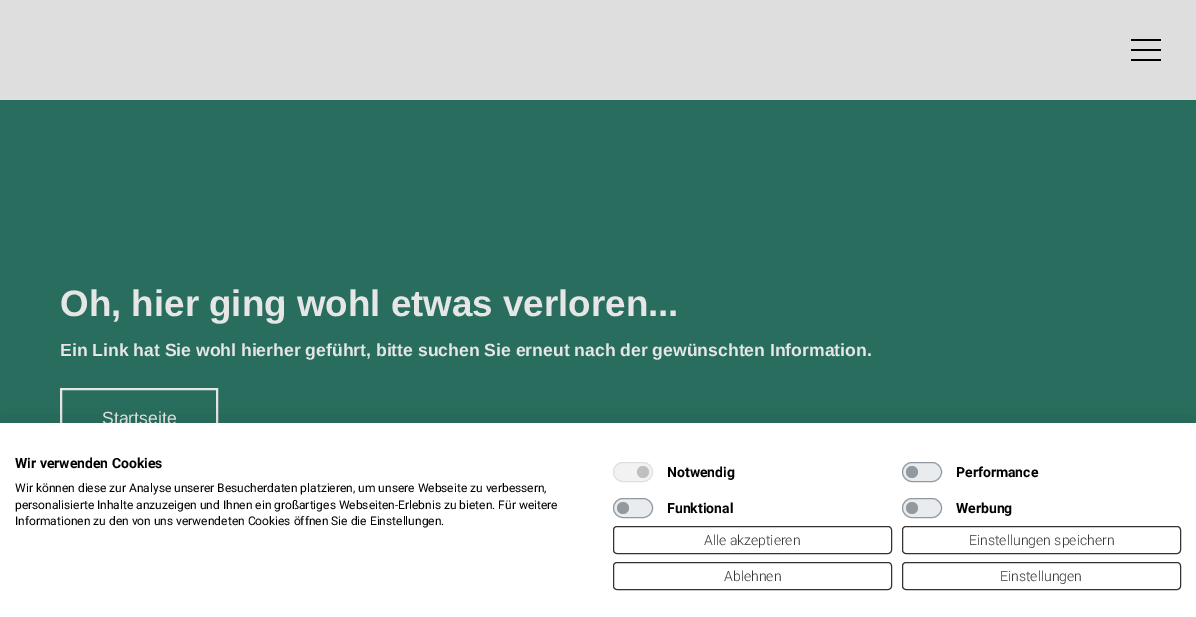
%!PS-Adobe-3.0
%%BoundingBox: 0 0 1196 617
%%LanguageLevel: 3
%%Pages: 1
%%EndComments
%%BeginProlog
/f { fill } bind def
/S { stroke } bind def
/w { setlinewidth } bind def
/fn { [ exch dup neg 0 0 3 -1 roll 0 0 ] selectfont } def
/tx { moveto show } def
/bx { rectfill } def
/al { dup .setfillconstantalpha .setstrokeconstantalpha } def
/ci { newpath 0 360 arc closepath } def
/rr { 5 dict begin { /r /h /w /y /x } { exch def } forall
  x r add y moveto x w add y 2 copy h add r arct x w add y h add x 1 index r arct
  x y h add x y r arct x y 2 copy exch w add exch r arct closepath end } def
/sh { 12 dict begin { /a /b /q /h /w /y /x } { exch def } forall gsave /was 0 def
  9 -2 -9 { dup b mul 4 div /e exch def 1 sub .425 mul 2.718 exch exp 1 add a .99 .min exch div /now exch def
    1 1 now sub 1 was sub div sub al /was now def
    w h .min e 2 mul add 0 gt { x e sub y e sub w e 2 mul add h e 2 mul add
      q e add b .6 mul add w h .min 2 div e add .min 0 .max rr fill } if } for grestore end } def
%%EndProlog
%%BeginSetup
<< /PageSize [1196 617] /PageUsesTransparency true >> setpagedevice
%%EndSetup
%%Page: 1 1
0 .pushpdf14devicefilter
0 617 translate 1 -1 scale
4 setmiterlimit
0.157 0.427 0.365 setrgbcolor
0 0 1196 617 bx
0.871 setgray
0 0 1196 100 bx
0 setgray
1131 49 30 2 bx
1131 39 30 2 bx
1131 59 30 2 bx
/LiberationSans-Bold 36.75 fn
0.902 setgray
(Oh, hier ging wohl etwas verloren...) 60 316 tx
/LiberationSans-Bold 17.6 fn
(Ein Link hat Sie wohl hierher geführt, bitte suchen Sie erneut nach der gewünschten Information.) 60 356 tx
2 w
61 389 156 59 rectstroke
/LiberationSans-Regular 17.6 fn
(Startseite) 102 424 tx
0 setgray
0 423 1196 194 0 12 0.1 sh
1 setgray
0 423 1196 194 bx
/Roboto-Bold 14 fn
0 setgray
(Wir verwenden Cookies) 15 468 tx
/Roboto-Regular 12 fn
(Wir können diese zur Analyse unserer Besucherdaten platzieren, um unsere Webseite zu verbessern,) 15 492 tx
(personalisierte Inhalte anzuzeigen und Ihnen ein großartiges Webseiten-Erlebnis zu bieten. Für weitere) 15 509 tx
(Informationen zu den von uns verwendeten Cookies öffnen Sie die Einstellungen.) 15 525 tx
0.949 setgray
613 462 40 20 10 rr f
0.749 setgray
643 472 6 ci f
0.875 setgray
1 w
613.5 462.5 39 19 9.5 rr S
/Roboto-Bold 14 fn
0 setgray
(Notwendig) 667 477 tx
0.914 0.925 0.937 setrgbcolor
902 462 40 20 10 rr f
0.573 0.6 0.624 setrgbcolor
912 472 6 ci f
0.7 al
0.424 0.459 0.49 setrgbcolor
902.5 462.5 39 19 9.5 rr S
1 al
0 setgray
(Performance) 956 477 tx
0.914 0.925 0.937 setrgbcolor
613 498 40 20 10 rr f
0.573 0.6 0.624 setrgbcolor
623 508 6 ci f
0.7 al
0.424 0.459 0.49 setrgbcolor
613.5 498.5 39 19 9.5 rr S
1 al
0 setgray
(Funktional) 667 513 tx
0.914 0.925 0.937 setrgbcolor
902 498 40 20 10 rr f
0.573 0.6 0.624 setrgbcolor
912 508 6 ci f
0.7 al
0.424 0.459 0.49 setrgbcolor
902.5 498.5 39 19 9.5 rr S
1 al
0 setgray
(Werbung) 956 513 tx
0.2 setgray
613.5 526.5 278 27 3.5 rr S
/Roboto-Light 14 fn
(Alle akzeptieren) 704 545 tx
902.5 526.5 278 27 3.5 rr S
(Einstellungen speichern) 969 545 tx
613.5 562.5 278 27 3.5 rr S
(Ablehnen) 724 581 tx
902.5 562.5 278 27 3.5 rr S
(Einstellungen) 1000 581 tx
.poppdf14devicefilter showpage
%%EOF
